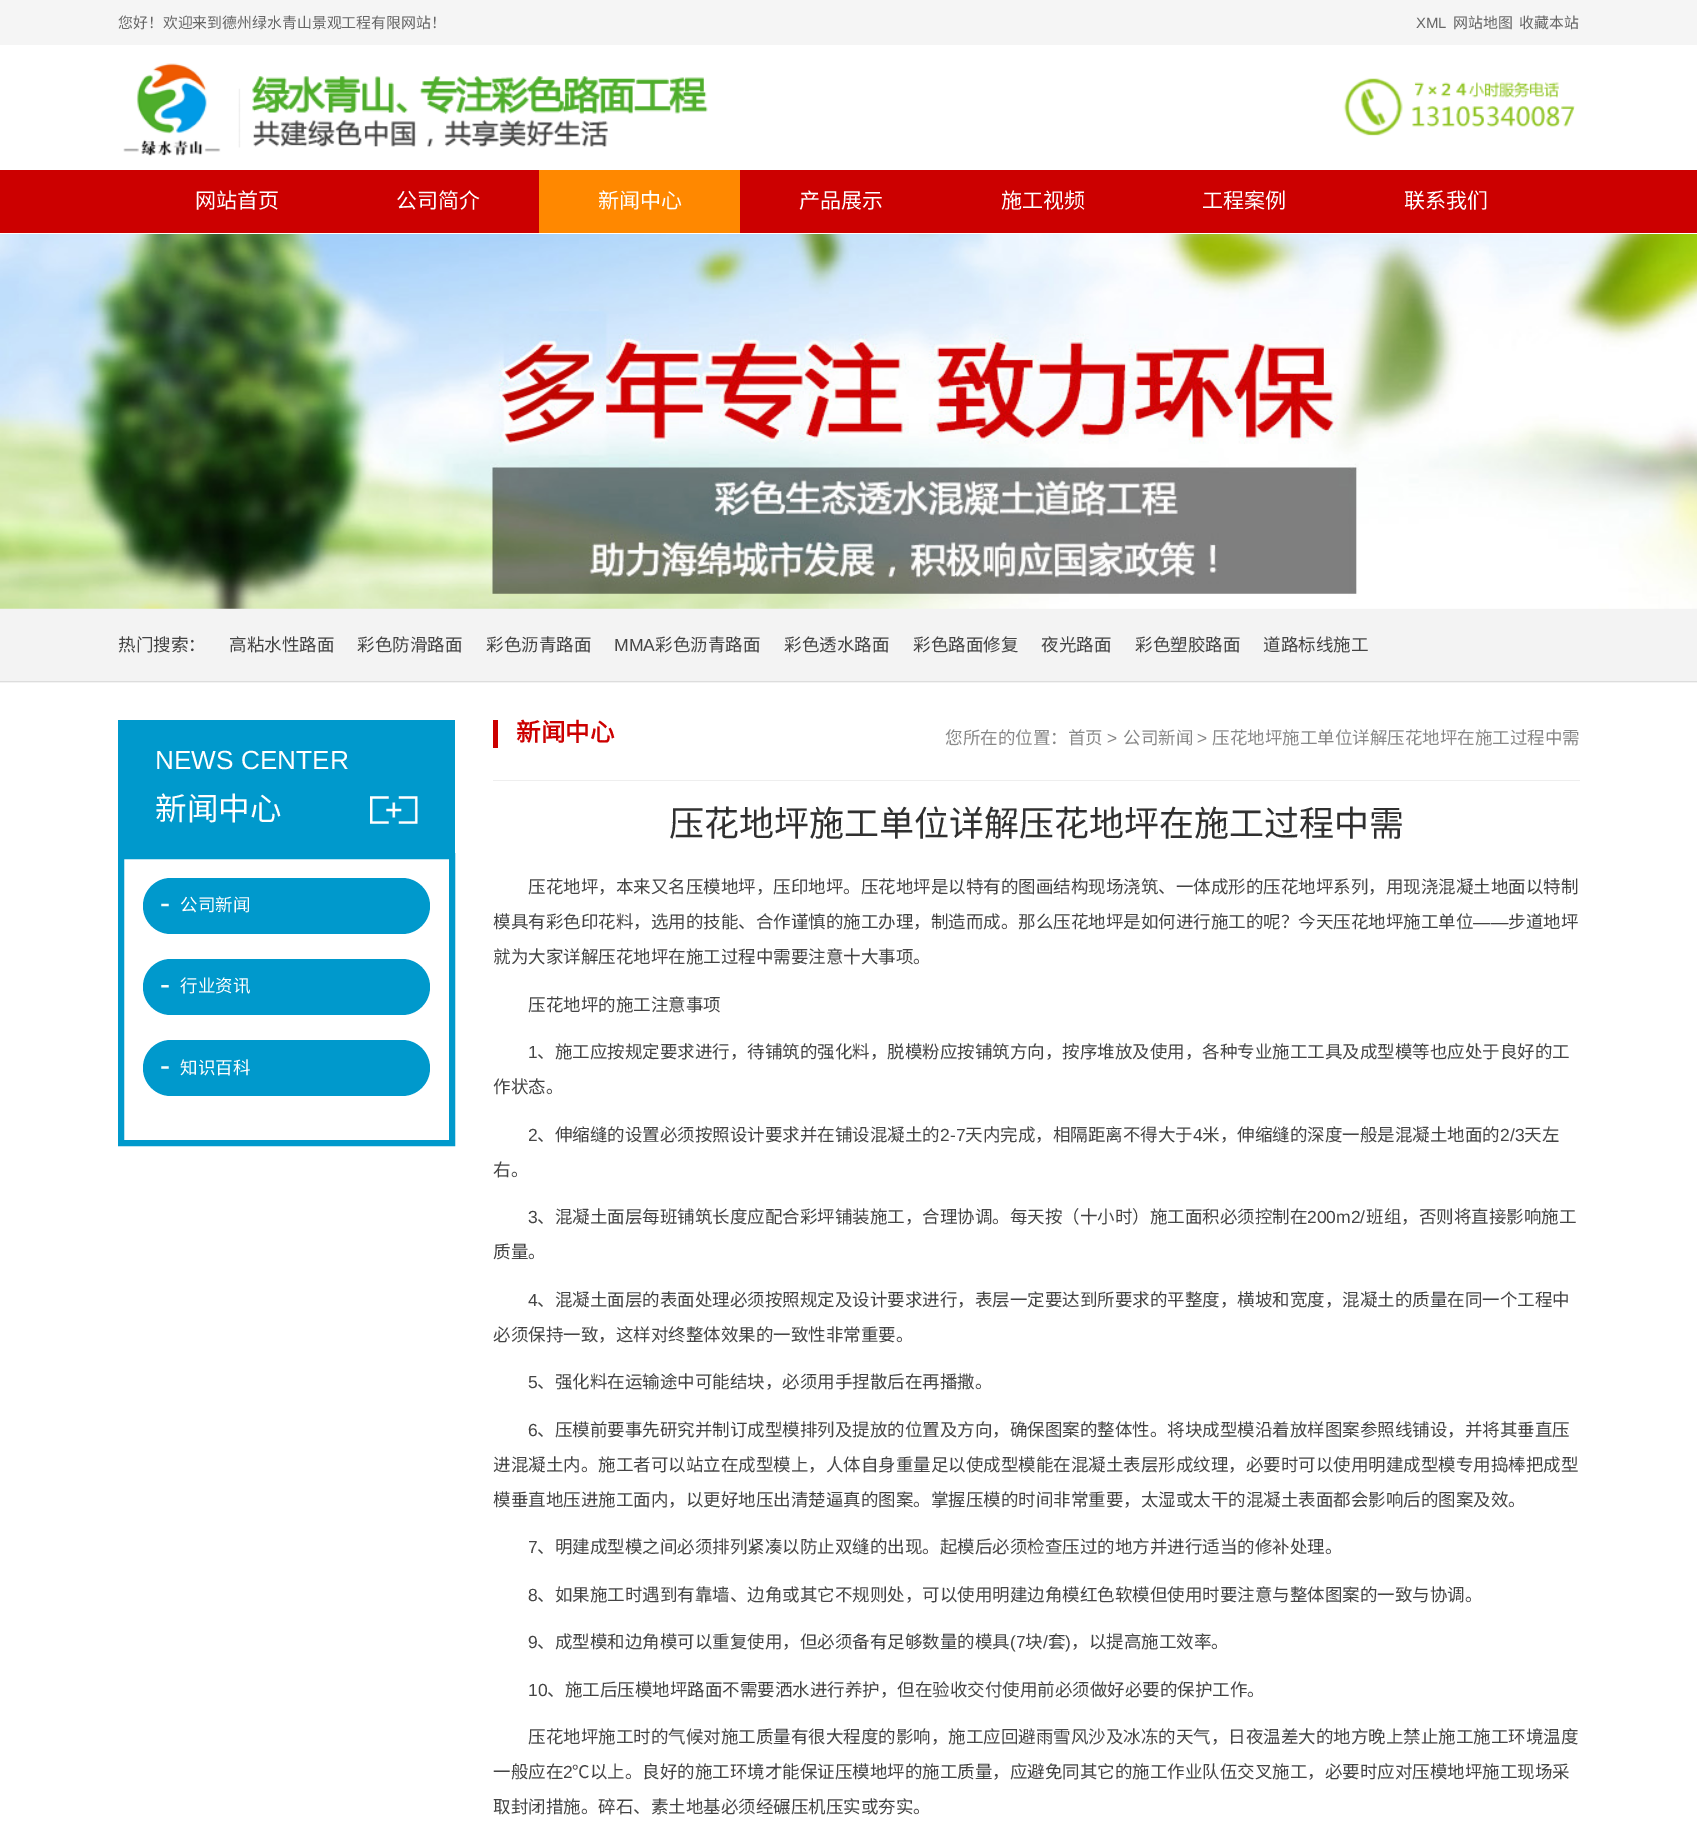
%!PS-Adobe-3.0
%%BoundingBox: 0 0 1697 1827
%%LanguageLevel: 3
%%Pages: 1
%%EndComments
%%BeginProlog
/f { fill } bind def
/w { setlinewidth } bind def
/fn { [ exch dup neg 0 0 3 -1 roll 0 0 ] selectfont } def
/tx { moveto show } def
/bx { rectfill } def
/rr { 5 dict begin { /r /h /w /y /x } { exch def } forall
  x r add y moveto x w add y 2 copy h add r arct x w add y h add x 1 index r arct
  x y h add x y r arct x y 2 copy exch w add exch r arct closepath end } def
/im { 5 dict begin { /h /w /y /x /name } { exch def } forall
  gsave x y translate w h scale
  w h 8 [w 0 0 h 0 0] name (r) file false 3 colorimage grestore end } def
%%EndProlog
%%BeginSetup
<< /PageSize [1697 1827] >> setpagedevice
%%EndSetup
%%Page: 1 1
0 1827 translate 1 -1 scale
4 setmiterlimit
1 setgray
0 0 1697 1827 bx
0.961 setgray
0 0 1697 45 bx
/NotoSansCJKSC-Regular 14.9 fn
0.4 setgray
(您好！欢迎来到德州绿水青山景观工程有限网站！) 118 28 tx
/LiberationSans-Regular 14.9 fn
(XML) 1416 28 tx
/NotoSansCJKSC-Regular 14.9 fn
(网站地图) 1453 28 tx
(收藏本站) 1519 28 tx
(image0.raw) 123 63 585 93 im
(image1.raw) 1343 78 232 58 im
0.8 0 0 setrgbcolor
0 170 1697 63 bx
/NotoSansCJKSC-Regular 21 fn
1 setgray
(网站首页) 195 208 tx
(公司简介) 396 208 tx
1 0.533 0 setrgbcolor
539 170 201 63 bx
1 setgray
(新闻中心) 598 208 tx
(产品展示) 799 208 tx
(施工视频) 1001 208 tx
(工程案例) 1202 208 tx
(联系我们) 1404 208 tx
(image2.raw) 0 234 1697 375 im
0.953 setgray
0 609 1697 74 bx
0.867 setgray
0 681 1697 1 bx
/NotoSansCJKSC-Regular 17.5 fn
0.267 setgray
(热门搜索：) 118 651 tx
(高粘水性路面) 229 651 tx
(彩色防滑路面) 357 651 tx
(彩色沥青路面) 486 651 tx
/LiberationSans-Regular 17.5 fn
(MMA) 614 651 tx
/NotoSansCJKSC-Regular 17.5 fn
(彩色沥青路面) 655 651 tx
(彩色透水路面) 784 651 tx
(彩色路面修复) 913 651 tx
(夜光路面) 1041 651 tx
(彩色塑胶路面) 1135 651 tx
(道路标线施工) 1263 651 tx
0 0.6 0.8 setrgbcolor
118 720 337 133 bx
/LiberationSans-Regular 26.25 fn
1 setgray
(NEWS CENTER) 155 769 tx
(image3.raw) 370 796 48 28 im
/NotoSansCJKSC-Regular 31.5 fn
(新闻中心) 155 820 tx
0 0.6 0.8 setrgbcolor
6 w
121 856 331 287 rectstroke
143 878 287 56 28 rr f
(image4.raw) 161 903 8 4 im
/NotoSansCJKSC-Regular 17.5 fn
1 setgray
(公司新闻) 180 911 tx
0 0.6 0.8 setrgbcolor
143 959 287 56 28 rr f
(image5.raw) 161 985 8 3 im
1 setgray
(行业资讯) 180 992 tx
0 0.6 0.8 setrgbcolor
143 1040 287 56 28 rr f
(image6.raw) 161 1066 8 3 im
1 setgray
(知识百科) 180 1074 tx
0.8 0 0 setrgbcolor
493 720 5 28 bx
/NotoSansCJKSC-Bold 24.5 fn
(新闻中心) 516 741 tx
/NotoSansCJKSC-Regular 17.5 fn
0.533 setgray
(您所在的位置：首页) 945 744 tx
/LiberationSans-Regular 17.5 fn
(>) 1107 744 tx
/NotoSansCJKSC-Regular 17.5 fn
(公司新闻) 1123 744 tx
/LiberationSans-Regular 17.5 fn
(>) 1197 744 tx
/NotoSansCJKSC-Regular 17.5 fn
(压花地坪施工单位详解压花地坪在施工过程中需) 1212 744 tx
0.933 setgray
493 780 1087 1 bx
/NotoSansCJKSC-Regular 35 fn
0.188 setgray
(压花地坪施工单位详解压花地坪在施工过程中需) 669 836 tx
/NotoSansCJKSC-Regular 17.5 fn
0.267 setgray
(压花地坪，本来又名压模地坪，压印地坪。压花地坪是以特有的图画结构现场浇筑、一体成形的压花地坪系列，用现浇混凝土地面以特制) 528 893 tx
(模具有彩色印花料，选用的技能、合作谨慎的施工办理，制造而成。那么压花地坪是如何进行施工的呢？今天压花地坪施工单位) 493 928 tx
/LiberationSans-Regular 17.5 fn
(——) 1473 928 tx
/NotoSansCJKSC-Regular 17.5 fn
(步道地坪) 1508 928 tx
(就为大家详解压花地坪在施工过程中需要注意十大事项。) 493 963 tx
(压花地坪的施工注意事项) 528 1011 tx
/LiberationSans-Regular 17.5 fn
(1) 528 1058 tx
/NotoSansCJKSC-Regular 17.5 fn
(、施工应按规定要求进行，待铺筑的强化料，脱模粉应按铺筑方向，按序堆放及使用，各种专业施工工具及成型模等也应处于良好的工) 537 1058 tx
(作状态。) 493 1093 tx
/LiberationSans-Regular 17.5 fn
(2) 528 1141 tx
/NotoSansCJKSC-Regular 17.5 fn
(、伸缩缝的设置必须按照设计要求并在铺设混凝土的) 537 1141 tx
/LiberationSans-Regular 17.5 fn
(2-7) 940 1141 tx
/NotoSansCJKSC-Regular 17.5 fn
(天内完成，相隔距离不得大于) 965 1141 tx
/LiberationSans-Regular 17.5 fn
(4) 1193 1141 tx
/NotoSansCJKSC-Regular 17.5 fn
(米，伸缩缝的深度一般是混凝土地面的) 1202 1141 tx
/LiberationSans-Regular 17.5 fn
(2/3) 1500 1141 tx
/NotoSansCJKSC-Regular 17.5 fn
(天左) 1524 1141 tx
(右。) 493 1176 tx
/LiberationSans-Regular 17.5 fn
(3) 528 1223 tx
/NotoSansCJKSC-Regular 17.5 fn
(、混凝土面层每班铺筑长度应配合彩坪铺装施工，合理协调。每天按（十小时）施工面积必须控制在) 537 1223 tx
/LiberationSans-Regular 17.5 fn
(200m2/) 1307 1223 tx
/NotoSansCJKSC-Regular 17.5 fn
(班组，否则将直接影响施工) 1366 1223 tx
(质量。) 493 1258 tx
/LiberationSans-Regular 17.5 fn
(4) 528 1306 tx
/NotoSansCJKSC-Regular 17.5 fn
(、混凝土面层的表面处理必须按照规定及设计要求进行，表层一定要达到所要求的平整度，横坡和宽度，混凝土的质量在同一个工程中) 537 1306 tx
(必须保持一致，这样对终整体效果的一致性非常重要。) 493 1341 tx
/LiberationSans-Regular 17.5 fn
(5) 528 1388 tx
/NotoSansCJKSC-Regular 17.5 fn
(、强化料在运输途中可能结块，必须用手捏散后在再播撒。) 537 1388 tx
/LiberationSans-Regular 17.5 fn
(6) 528 1436 tx
/NotoSansCJKSC-Regular 17.5 fn
(、压模前要事先研究并制订成型模排列及提放的位置及方向，确保图案的整体性。将块成型模沿着放样图案参照线铺设，并将其垂直压) 537 1436 tx
(进混凝土内。施工者可以站立在成型模上，人体自身重量足以使成型模能在混凝土表层形成纹理，必要时可以使用明建成型模专用捣棒把成型) 493 1471 tx
(模垂直地压进施工面内，以更好地压出清楚逼真的图案。掌握压模的时间非常重要，太湿或太干的混凝土表面都会影响后的图案及效。) 493 1506 tx
/LiberationSans-Regular 17.5 fn
(7) 528 1553 tx
/NotoSansCJKSC-Regular 17.5 fn
(、明建成型模之间必须排列紧凑以防止双缝的出现。起模后必须检查压过的地方并进行适当的修补处理。) 537 1553 tx
/LiberationSans-Regular 17.5 fn
(8) 528 1601 tx
/NotoSansCJKSC-Regular 17.5 fn
(、如果施工时遇到有靠墙、边角或其它不规则处，可以使用明建边角模红色软模但使用时要注意与整体图案的一致与协调。) 537 1601 tx
/LiberationSans-Regular 17.5 fn
(9) 528 1648 tx
/NotoSansCJKSC-Regular 17.5 fn
(、成型模和边角模可以重复使用，但必须备有足够数量的模具) 537 1648 tx
/LiberationSans-Regular 17.5 fn
(\(7) 1010 1648 tx
/NotoSansCJKSC-Regular 17.5 fn
(块) 1025 1648 tx
/LiberationSans-Regular 17.5 fn
(/) 1043 1648 tx
/NotoSansCJKSC-Regular 17.5 fn
(套) 1048 1648 tx
/LiberationSans-Regular 17.5 fn
(\)) 1065 1648 tx
/NotoSansCJKSC-Regular 17.5 fn
(，以提高施工效率。) 1071 1648 tx
/LiberationSans-Regular 17.5 fn
(10) 528 1696 tx
/NotoSansCJKSC-Regular 17.5 fn
(、施工后压模地坪路面不需要洒水进行养护，但在验收交付使用前必须做好必要的保护工作。) 547 1696 tx
(压花地坪施工时的气候对施工质量有很大程度的影响，施工应回避雨雪风沙及冰冻的天气，日夜温差大的地方晚上禁止施工施工环境温度) 528 1743 tx
(一般应在) 493 1778 tx
/LiberationSans-Regular 17.5 fn
(2) 563 1778 tx
/NotoSansCJKSC-Regular 17.5 fn
(℃以上。良好的施工环境才能保证压模地坪的施工质量，应避免同其它的施工作业队伍交叉施工，必要时应对压模地坪施工现场采) 572 1778 tx
(取封闭措施。碎石、素土地基必须经碾压机压实或夯实。) 493 1813 tx
showpage
%%EOF
